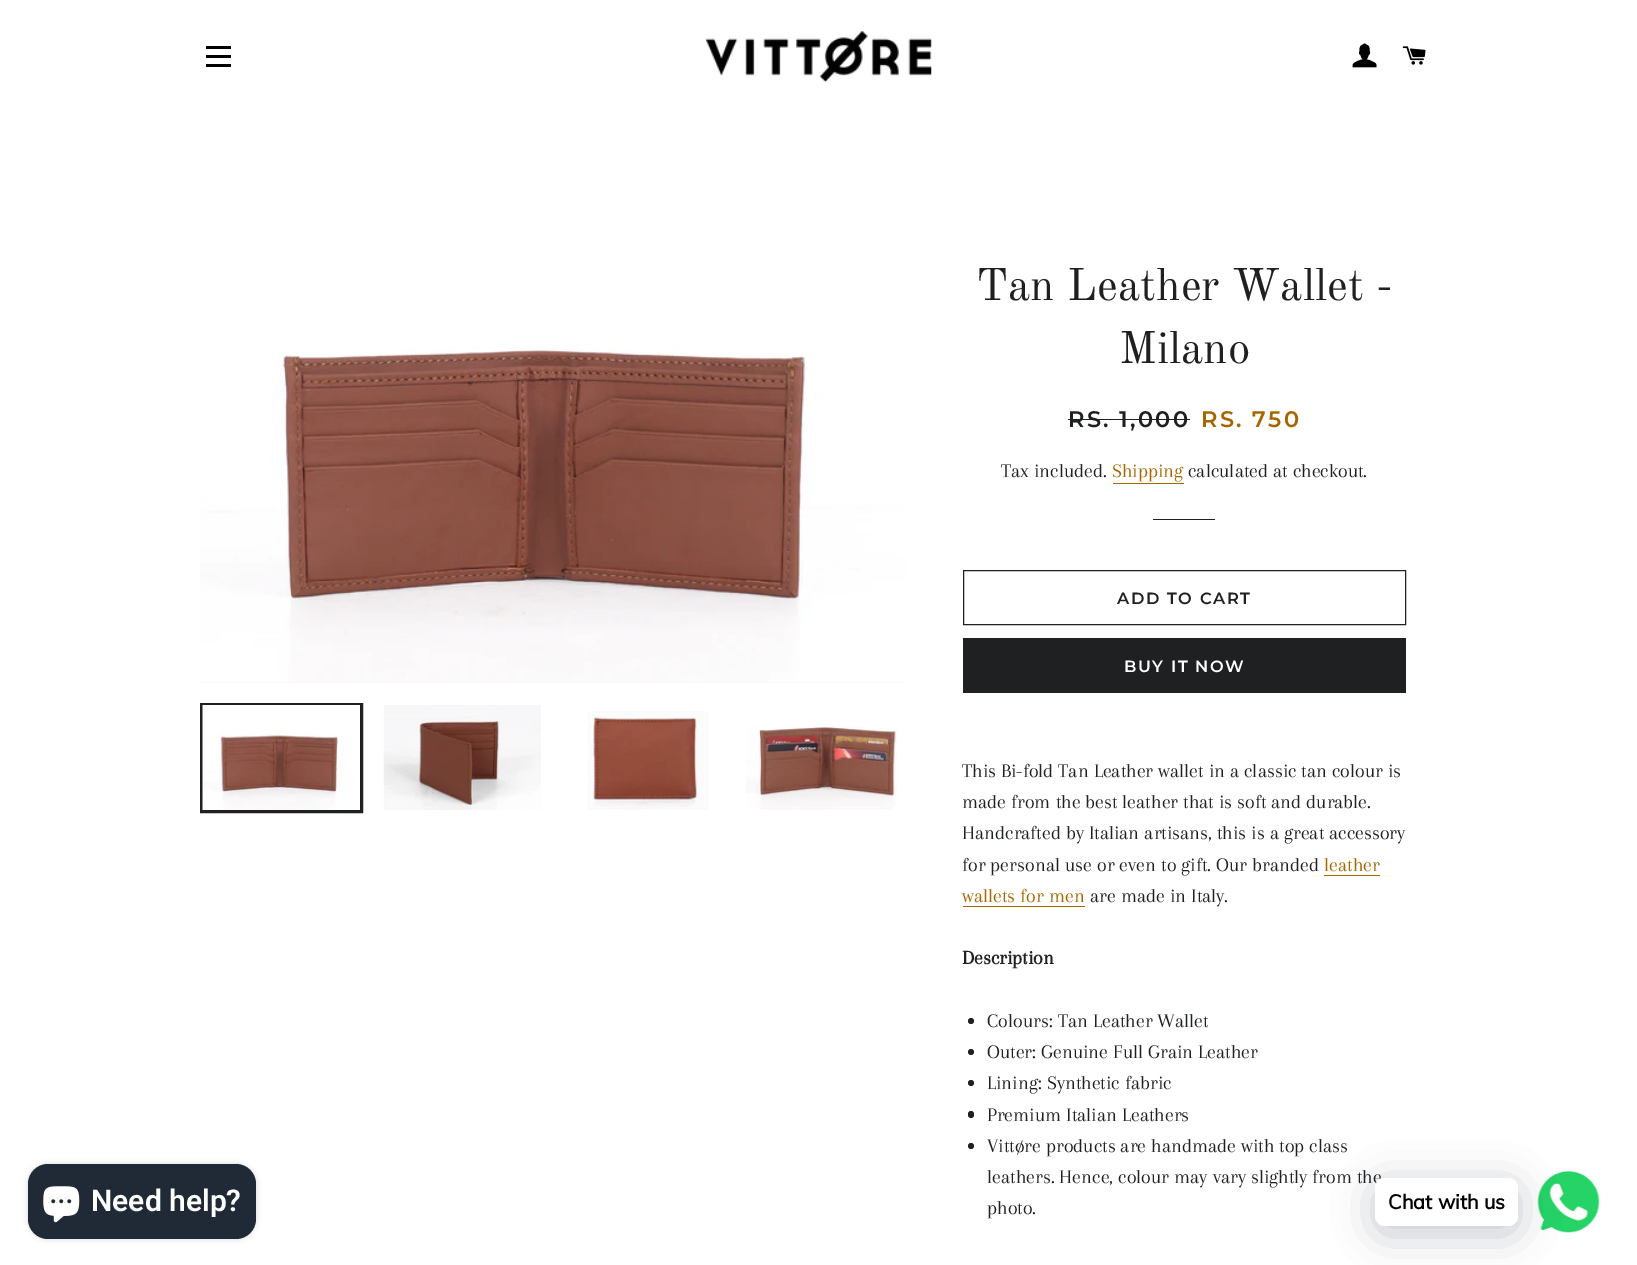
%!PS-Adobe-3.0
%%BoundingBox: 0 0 1637 1265
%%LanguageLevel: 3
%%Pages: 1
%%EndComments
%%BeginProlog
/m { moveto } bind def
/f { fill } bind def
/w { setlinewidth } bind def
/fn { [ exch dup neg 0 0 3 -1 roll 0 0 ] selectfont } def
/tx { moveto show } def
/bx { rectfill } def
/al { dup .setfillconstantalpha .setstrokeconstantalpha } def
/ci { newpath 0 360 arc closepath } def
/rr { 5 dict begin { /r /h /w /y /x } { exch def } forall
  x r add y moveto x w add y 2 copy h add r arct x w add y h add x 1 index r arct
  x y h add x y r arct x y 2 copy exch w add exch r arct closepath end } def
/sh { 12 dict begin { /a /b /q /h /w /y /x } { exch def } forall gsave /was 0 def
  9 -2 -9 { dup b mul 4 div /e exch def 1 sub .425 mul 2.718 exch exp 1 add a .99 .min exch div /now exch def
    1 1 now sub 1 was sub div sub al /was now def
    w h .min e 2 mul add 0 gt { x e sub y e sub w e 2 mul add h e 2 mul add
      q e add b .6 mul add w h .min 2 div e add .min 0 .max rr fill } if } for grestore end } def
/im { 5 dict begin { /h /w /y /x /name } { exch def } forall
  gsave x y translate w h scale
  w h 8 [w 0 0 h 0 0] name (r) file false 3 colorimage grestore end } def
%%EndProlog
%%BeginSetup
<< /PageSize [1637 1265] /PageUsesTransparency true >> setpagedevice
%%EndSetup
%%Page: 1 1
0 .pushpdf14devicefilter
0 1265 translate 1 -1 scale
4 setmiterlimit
1 setgray
0 0 1637 1265 bx
0 setgray
206 46 25 3 bx
206 55 25 3 bx
206 64 25 3 bx
(image0.raw) 706 31 226 51 im
(image1.raw) 1352 43 25 25 im
(image2.raw) 1402 46 24 19 im
28 1164 228 75 20 3 0.15 sh
0.125 0.165 0.212 setrgbcolor
28 1164 228 75 20 rr f
(image3.raw) 43 1186 37 37 im
/Roboto-SemiBold 30 fn
1 setgray
(Need help?) 91 1211 tx
0.965 setgray
200 682 706 1 bx
(image4.raw) 200 213 706 470 im
0.122 0.125 0.129 setrgbcolor
3 w
201.5 704.5 160 107 rectstroke
(image5.raw) 202 705 158 105 im
(image6.raw) 383 705 158 105 im
(image7.raw) 588 711 120 99 im
(image8.raw) 746 726 151 84 im
/OldStandardTT-Regular 45 fn
(Tan Leather Wallet -) 976 300 tx
(Milano) 1119 363 tx
/Montserrat-SemiBold 22.5 fn
1068 427 m 2.25 0 (RS. 1,000) ashow
1068 419 122 1 bx
0.647 0.4 0 setrgbcolor
1201 427 m 2.25 0 (RS. 750) ashow
/Arapey-Regular 20 fn
0.122 0.125 0.129 setrgbcolor
(Tax included.) 1001 477 tx
0.647 0.4 0 setrgbcolor
(Shipping) 1112 477 tx
1113 483 71 1 bx
0.122 0.125 0.129 setrgbcolor
(calculated at checkout.) 1188 477 tx
1153 519 62 1 bx
1 w
963.5 570.5 442 54 rectstroke
/Montserrat-SemiBold 16.25 fn
1117 604 m 1.6 0 (ADD TO CART) ashow
963 638 443 55 bx
1 setgray
1124 672 m 1.6 0 (BUY IT NOW) ashow
/Arapey-Regular 20 fn
0.122 0.125 0.129 setrgbcolor
(This Bi-fold Tan Leather wallet in a classic tan colour is) 962 777 tx
(made from the best leather that is soft and durable.) 962 808 tx
(Handcrafted by Italian artisans, this is a great accessory) 962 839 tx
(for personal use or even to gift. Our branded) 962 871 tx
0.647 0.4 0 setrgbcolor
(leather) 1324 871 tx
1324 875 56 1 bx
(wallets for men) 962 902 tx
963 906 122 1 bx
0.122 0.125 0.129 setrgbcolor
(are made in Italy.) 1090 902 tx
/Arapey-Bold 20 fn
(Description) 962 964 tx
971 1021 3 ci f
/Arapey-Regular 20 fn
(Colours: Tan Leather Wallet) 987 1027 tx
971 1052 3 ci f
(Outer: Genuine Full Grain Leather) 987 1058 tx
971 1083 3 ci f
(Lining: Synthetic fabric) 987 1089 tx
968 1111 6 7 3 rr f
(Premium Italian Leathers) 987 1121 tx
971 1146 3 ci f
(Vittøre products are handmade with top class) 987 1152 tx
(leathers. Hence, colour may vary slightly from the) 987 1183 tx
(photo.) 987 1214 tx
(image9.raw) 1537 1171 63 62 im
0 0.071 0.18 setrgbcolor
1375 1185 143 49 10 20 0.24 sh
1 setgray
1375 1178 143 48 10 rr f
/Muli-Bold 20 fn
0 setgray
(Chat with us) 1388 1209 tx
.poppdf14devicefilter showpage
%%EOF
